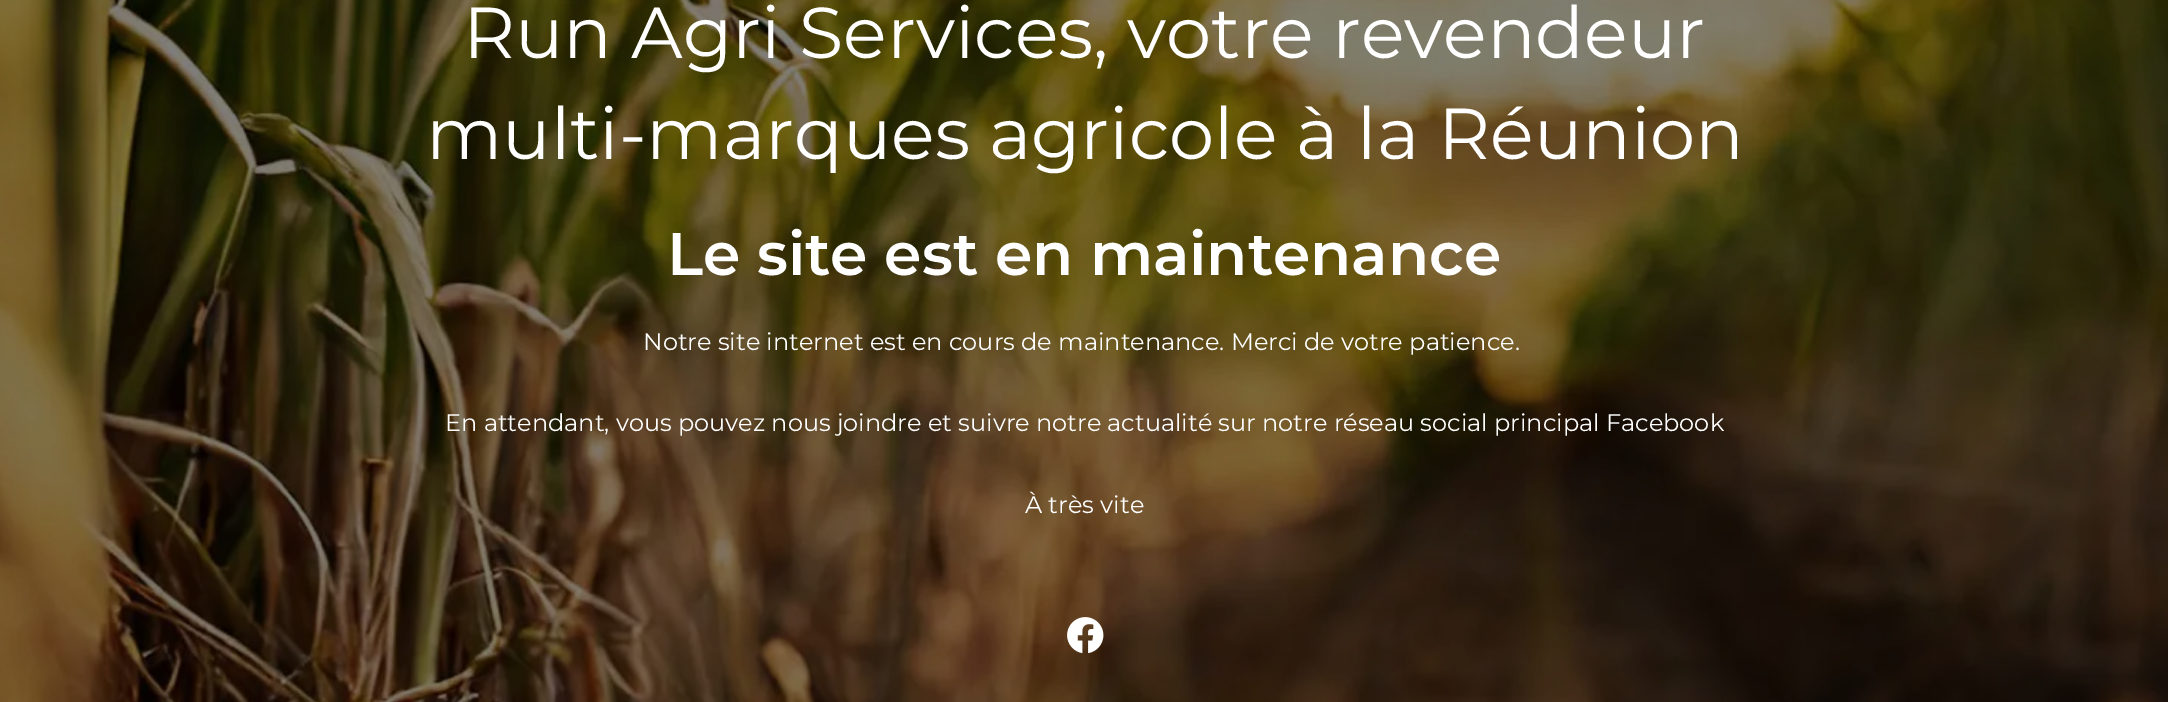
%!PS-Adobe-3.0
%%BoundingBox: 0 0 2168 702
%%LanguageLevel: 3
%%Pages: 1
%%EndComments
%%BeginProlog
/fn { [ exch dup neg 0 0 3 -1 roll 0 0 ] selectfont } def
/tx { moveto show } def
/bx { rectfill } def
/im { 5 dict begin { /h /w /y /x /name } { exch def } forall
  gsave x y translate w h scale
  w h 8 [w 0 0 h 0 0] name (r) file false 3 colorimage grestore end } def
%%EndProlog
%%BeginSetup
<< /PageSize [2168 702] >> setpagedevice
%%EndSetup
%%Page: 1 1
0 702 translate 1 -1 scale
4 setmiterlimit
1 setgray
0 0 2168 702 bx
(image0.raw) 0 0 2168 702 im
/Montserrat-Regular 72 fn
(Run Agri Services, votre revendeur) 463 58 tx
(multi-marques agricole à la Réunion) 426 159 tx
/Montserrat-SemiBold 60 fn
(Le site est en maintenance) 667 275 tx
/Montserrat-Regular 24 fn
(Notre site internet est en cours de maintenance. Merci de votre patience.) 643 350 tx
(En attendant, vous pouvez nous joindre et suivre notre actualité sur notre réseau social principal Facebook) 445 431 tx
(À très vite) 1025 513 tx
(image1.raw) 1067 617 37 37 im
showpage
%%EOF
